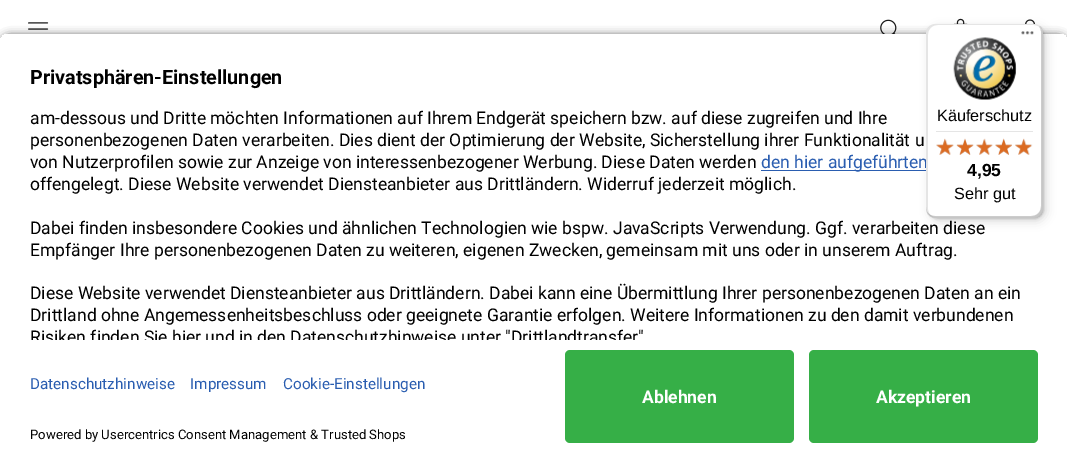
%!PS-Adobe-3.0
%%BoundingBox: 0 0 1067 472
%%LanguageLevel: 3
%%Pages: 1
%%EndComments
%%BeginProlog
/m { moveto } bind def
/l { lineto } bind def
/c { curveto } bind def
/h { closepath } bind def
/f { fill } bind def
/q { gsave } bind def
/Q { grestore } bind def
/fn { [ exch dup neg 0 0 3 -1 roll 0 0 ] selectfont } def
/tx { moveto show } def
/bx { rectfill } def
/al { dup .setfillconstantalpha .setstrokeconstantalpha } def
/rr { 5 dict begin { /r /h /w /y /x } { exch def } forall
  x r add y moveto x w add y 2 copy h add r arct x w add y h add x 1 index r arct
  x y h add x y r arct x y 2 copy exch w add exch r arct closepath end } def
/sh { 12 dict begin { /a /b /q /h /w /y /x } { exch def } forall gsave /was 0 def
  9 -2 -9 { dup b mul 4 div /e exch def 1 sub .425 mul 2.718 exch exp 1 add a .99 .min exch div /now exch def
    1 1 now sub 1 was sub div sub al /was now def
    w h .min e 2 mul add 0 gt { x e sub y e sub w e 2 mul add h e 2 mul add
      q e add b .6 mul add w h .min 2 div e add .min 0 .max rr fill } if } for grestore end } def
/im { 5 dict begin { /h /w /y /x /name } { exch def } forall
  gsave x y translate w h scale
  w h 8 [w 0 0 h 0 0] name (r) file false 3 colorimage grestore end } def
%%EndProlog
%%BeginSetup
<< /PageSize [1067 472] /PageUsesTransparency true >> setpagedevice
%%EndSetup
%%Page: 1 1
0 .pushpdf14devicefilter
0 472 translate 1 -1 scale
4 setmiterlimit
1 setgray
0 0 1067 472 bx
(image0.raw) 28 22 21 8 im
(image1.raw) 880 19 17 15 im
(image2.raw) 954 18 14 6 im
(image3.raw) 1025 19 10 6 im
0 setgray
0 36 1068 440 10 4.5 0.8 sh
q
10 33 m 1058 33 l 1063.5 33 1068 37.5 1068 43 c 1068 340 l 0 340 l 0 43 l 0 37.5 4.5 33 10 33 c h clip newpath
1 setgray
0 34 1067 306 bx
Q
/Roboto-Bold 19.75 fn
(Privatsphären-Einstellungen) 30 84 tx
/Roboto-Regular 17.5 fn
(am-dessous und Dritte möchten Informationen auf Ihrem Endgerät speichern bzw. auf diese zugreifen und Ihre) 30 124 tx
(personenbezogenen Daten verarbeiten. Dies dient der Optimierung der Website, Sicherstellung ihrer Funktionalität u) 30 146 tx
(von Nutzerprofilen sowie zur Anzeige von interessenbezogener Werbung. Diese Daten werden) 30 168 tx
0.165 0.365 0.69 setrgbcolor
761 170 165 1 bx
(den hier aufgeführten) 761 168 tx
0 setgray
(offengelegt. Diese Website verwendet Diensteanbieter aus Drittländern. Widerruf jederzeit möglich.) 30 190 tx
(Dabei finden insbesondere Cookies und ähnlichen Technologien wie bspw. JavaScripts Verwendung. Ggf. verarbeiten diese) 30 234 tx
(Empfänger Ihre personenbezogenen Daten zu weiteren, eigenen Zwecken, gemeinsam mit uns oder in unserem Auftrag.) 30 256 tx
(Diese Website verwendet Diensteanbieter aus Drittländern. Dabei kann eine Übermittlung Ihrer personenbezogenen Daten an ein) 30 299 tx
(Drittland ohne Angemessenheitsbeschluss oder geeignete Garantie erfolgen. Weitere Informationen zu den damit verbundenen) 30 321 tx
q
10 33 m 1058 33 l 1063.5 33 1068 37.5 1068 43 c 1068 340 l 0 340 l 0 43 l 0 37.5 4.5 33 10 33 c h clip newpath
(Risiken finden Sie hier und in den Datenschutzhinweise unter "Drittlandtransfer") 30 343 tx
Q
1 setgray
0 340 1067 132 bx
/Roboto-Regular 15.25 fn
0.165 0.365 0.69 setrgbcolor
(Datenschutzhinweise) 30 389 tx
(Impressum) 190 389 tx
(Cookie-Einstellungen) 283 389 tx
/Roboto-Regular 13.1 fn
0 setgray
(Powered by Usercentrics Consent Management & Trusted Shops) 30 439 tx
0.212 0.686 0.278 setrgbcolor
565 350 229 93 5 rr f
/Roboto-Bold 17.5 fn
1 setgray
(Ablehnen) 642 403 tx
0.212 0.686 0.278 setrgbcolor
809 350 229 93 5 rr f
1 setgray
(Akzeptieren) 876 403 tx
0 setgray
930 28 116 193 10 5 0.15 sh
928 25 116 194 10 1 0.15 sh
1 setgray
926 24 117 194 10 rr f
0.1 al
0 setgray
938 25 m 1034 25 l 1036 25 1039 26 1041 28 c 1039 25 1036 24 1033 24 c 936 24 l 930 24 926 28 926 34 c 926 208 l 926 212 929 216 933 217 c 930 216 928 212 928 209 c 928 35 l 928 29 932 25 938 25 c h f
0.2 al
927 212 m 929 216 932 218 936 218 c 1033 218 l 1039 218 1043 214 1043 208 c 1043 34 l 1043 31 1041 28 1039 26 c 1040 28 1041 30 1041 32 c 1041 206 l 1041 212 1037 216 1031 216 c 935 216 l 932 216 929 215 927 212 c h f
0.196 setgray
926 207 m 926 208 l 926 214 930 218 936 218 c 1033 218 l 1039 218 1043 214 1043 208 c 1043 34 l 1043 31 1042 28 1040 26 c 1041 28 1042 30 1042 33 c 1042 207 l 1042 212 1037 217 1032 217 c 936 217 l 930 217 926 212 926 207 c h f
0.3 al
1 setgray
926 207 m 926 208 l 926 214 930 218 936 218 c 1033 218 l 1039 218 1043 214 1043 208 c 1043 34 l 1043 30 1041 27 1038 25 c 1040 27 1042 30 1042 33 c 1042 207 l 1042 212 1037 217 1032 217 c 936 217 l 930 217 926 212 926 207 c h f
1 al
(image4.raw) 1021 31 13 4 im
(image5.raw) 953 37 64 63 im
/LiberationSans-Regular 16.25 fn
0 setgray
(Käuferschutz) 937 121 tx
0.898 setgray
936 131 97 1 bx
(image11.raw) 936 139 18 16 im
(image6.raw) 936 138 18 17 im
(image12.raw) 957 139 17 16 im
(image7.raw) 956 138 18 17 im
(image13.raw) 976 139 17 16 im
(image8.raw) 976 138 17 17 im
(image14.raw) 995 139 17 16 im
(image9.raw) 995 138 17 17 im
(image15.raw) 1015 139 18 16 im
(image10.raw) 1015 138 17 17 im
/LiberationSans-Bold 17.5 fn
0 setgray
(4,95) 967 176 tx
/LiberationSans-Regular 16.25 fn
(Sehr gut) 954 199 tx
.poppdf14devicefilter showpage
%%EOF
